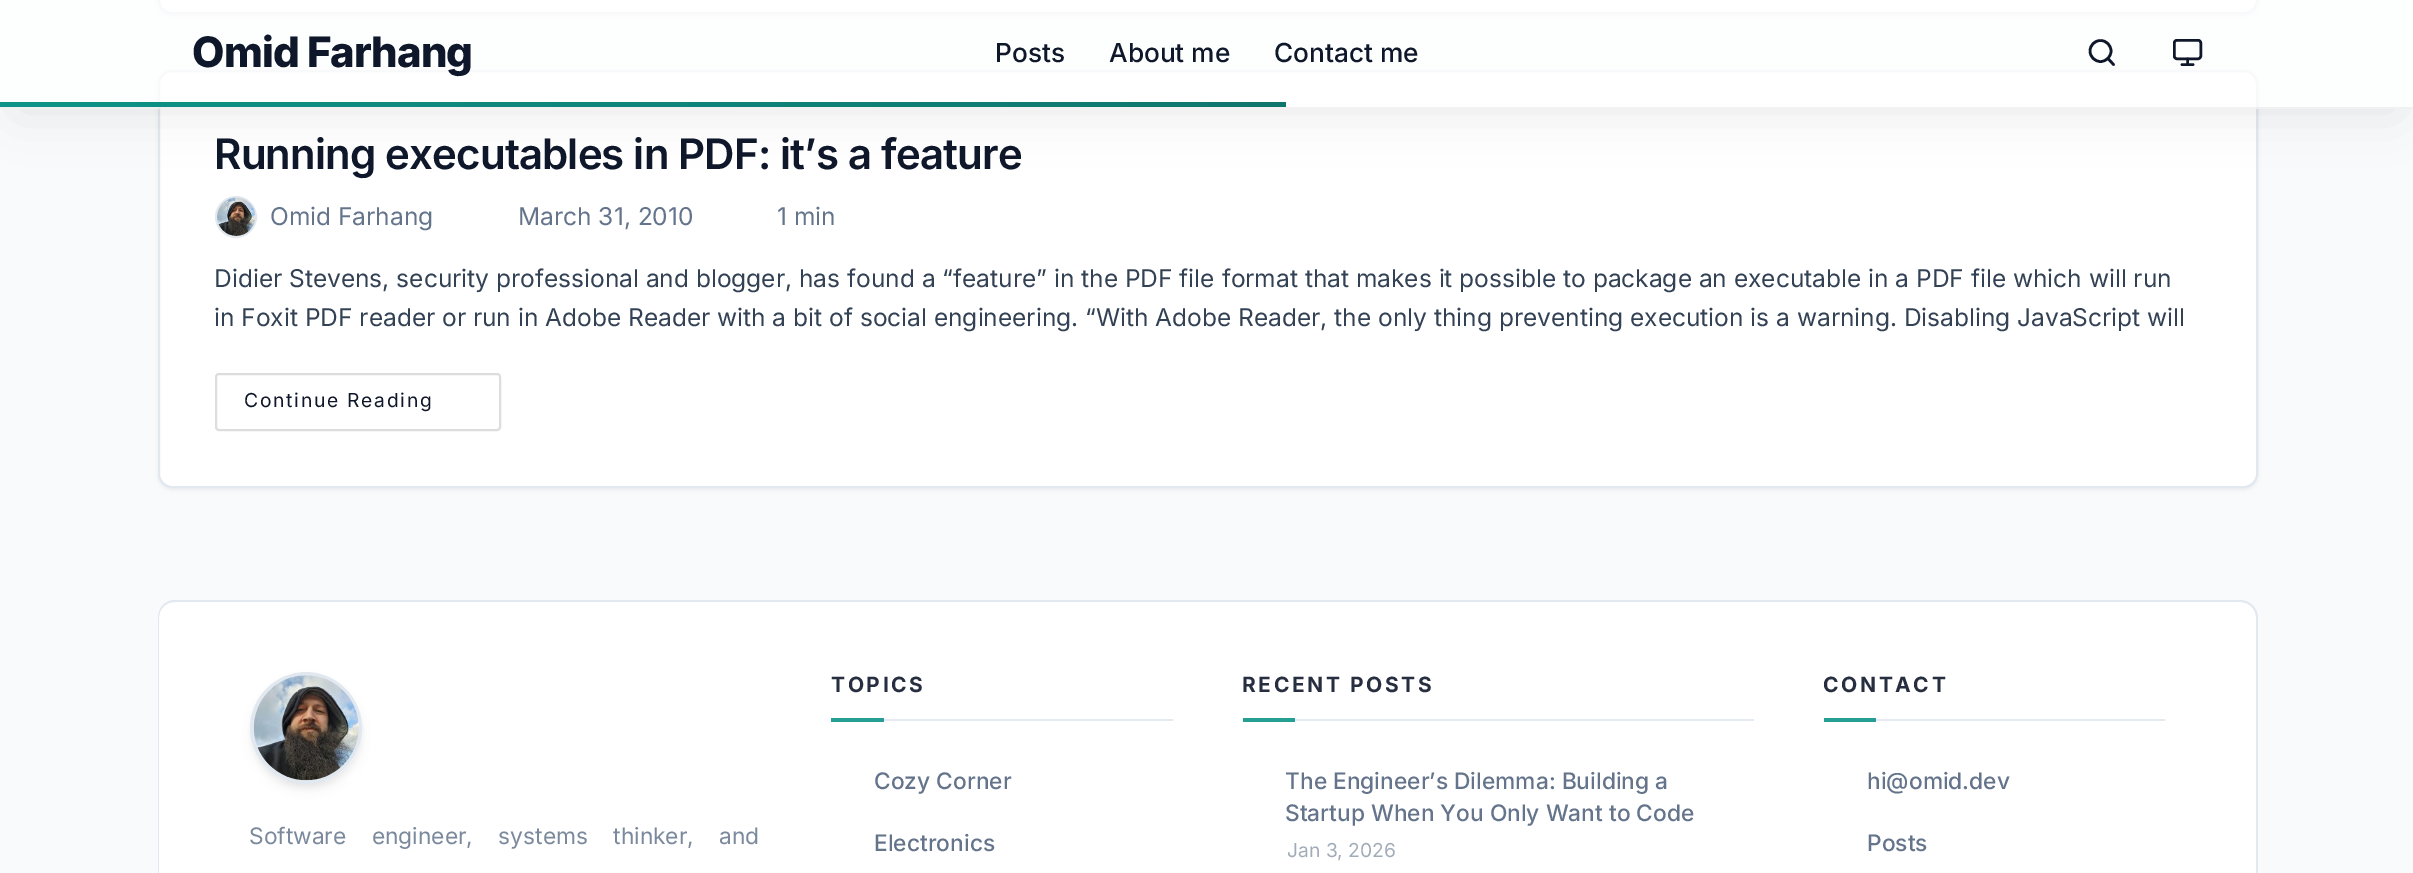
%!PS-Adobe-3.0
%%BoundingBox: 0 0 2413 873
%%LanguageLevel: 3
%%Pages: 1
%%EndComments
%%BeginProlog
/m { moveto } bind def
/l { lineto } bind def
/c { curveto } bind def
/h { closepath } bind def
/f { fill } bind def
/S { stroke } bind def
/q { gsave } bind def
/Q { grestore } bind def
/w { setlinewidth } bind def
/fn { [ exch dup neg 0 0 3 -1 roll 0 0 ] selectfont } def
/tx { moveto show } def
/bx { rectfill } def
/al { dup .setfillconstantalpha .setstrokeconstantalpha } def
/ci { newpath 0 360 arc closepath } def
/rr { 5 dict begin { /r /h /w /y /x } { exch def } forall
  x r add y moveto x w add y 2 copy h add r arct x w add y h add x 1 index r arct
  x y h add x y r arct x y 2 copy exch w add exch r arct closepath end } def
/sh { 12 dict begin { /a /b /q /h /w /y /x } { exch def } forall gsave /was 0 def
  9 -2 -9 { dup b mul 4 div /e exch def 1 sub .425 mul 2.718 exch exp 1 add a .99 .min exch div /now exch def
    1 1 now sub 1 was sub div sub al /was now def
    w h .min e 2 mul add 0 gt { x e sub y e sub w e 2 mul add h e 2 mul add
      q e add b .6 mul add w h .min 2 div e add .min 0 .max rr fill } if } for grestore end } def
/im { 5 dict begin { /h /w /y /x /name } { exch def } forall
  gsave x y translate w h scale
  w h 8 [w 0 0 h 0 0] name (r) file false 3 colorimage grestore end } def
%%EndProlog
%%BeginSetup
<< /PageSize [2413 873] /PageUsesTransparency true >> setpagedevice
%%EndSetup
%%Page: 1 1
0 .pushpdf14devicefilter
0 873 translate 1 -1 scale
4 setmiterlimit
0.973 0.98 0.988 setrgbcolor
0 0 2413 873 bx
0 setgray
158 -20 2100 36 14 2 0.05 sh
1 setgray
159 -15 2098 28 13 rr q f Q
0.886 0.91 0.941 setrgbcolor
2 w
S
0 setgray
158 72 2100 418 14 2 0.05 sh
1 setgray
159 71 2098 416 13 rr q f Q
0.886 0.91 0.941 setrgbcolor
S
q
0 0 m 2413 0 l 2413 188 l 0 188 l h 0 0 m 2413 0 l 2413 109 l 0 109 l h eoclip newpath
0 setgray
18 35 2378 74 0 26 0.1 sh
Q
0.75 al
1 setgray
0 0 2413 109 bx
0.05 al
0 setgray
0 107 2413 2 bx
/Inter-ExtraBold 42 fn
1 al
0.059 0.09 0.165 setrgbcolor
192 67 m -0.9 0 (Omid Farhang) ashow
/Inter-Medium 26.25 fn
(Posts) 995 62 tx
(About me) 1109 62 tx
(Contact me) 1274 62 tx
2.6 w
2100.5 51 10.5 ci S
1 setlinecap
1 setlinejoin
2113.5 64.5 m 2108 58.5 l S
2.5 w
0 setlinecap
0 setlinejoin
2174.25 40.25 26.5 18.5 2.75 rr S
2.6 w
1 setlinecap
1 setlinejoin
2182 64.5 m 2193 64.5 l 2187.5 59 m 2187.5 64.5 l S
q 0 102 m 1286 102 l 1286 107 l 0 107 l h clip newpath
<< /ShadingType 2 /ColorSpace /DeviceRGB /Coords [0 104 1286 104] /Extend [true true] /Function << /FunctionType 2 /Domain [0 1] /C0 [0.051 0.58 0.533] /C1 [0.059 0.463 0.431] /N 1 >> >> shfill Q
/Inter-SemiBold 42 fn
214 169 m -0.85 0 (Running executables in PDF: it’s a feature) ashow
0.886 0.91 0.941 setrgbcolor
2 w
0 setlinecap
0 setlinejoin
236 217 20 ci S
(image0.raw) 217 197 39 39 im
/Inter-Regular 24.5 fn
0.392 0.455 0.545 setrgbcolor
(Omid Farhang) 270 225 tx
(March 31, 2010) 518 225 tx
(1 min) 777 225 tx
0.2 0.255 0.333 setrgbcolor
(Didier Stevens, security professional and blogger, has found a “feature” in the PDF file format that makes it possible to package an executable in a PDF file which will run) 214 287 tx
(in Foxit PDF reader or run in Adobe Reader with a bit of social engineering. “With Adobe Reader, the only thing preventing execution is a warning. Disabling JavaScript will) 214 326 tx
0.867 setgray
216 374 284 56 3 rr S
/Inter-Regular 19.25 fn
0.059 0.09 0.165 setrgbcolor
244 407 m 1.75 0 (Continue Reading) ashow
1 setgray
176 600 m 2240 600 l 2250 600 2258 608 2258 618 c 2258 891 l 158 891 l 158 618 l 158 608 166 600 176 600 c h f
0.886 0.91 0.941 setrgbcolor
175 600 m 2240 600 l 2250 600 2258 608 2258 618 c 2258 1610 l 158 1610 l 158 618 l 158 608 165 600 175 600 c h 175 602 m 2240 602 l 2249 602 2256 609 2256 618 c 2256 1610 l 159 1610 l 159 618 l 159 609 166 602 175 602 c h eofill
0 setgray
252 677 109 109 54.5 3.5 0.04 sh
252 681 109 108 54 5 0.07 sh
0.886 0.91 0.941 setrgbcolor
4 w
306 728 54 ci S
(image1.raw) 253 675 106 106 im
/Inter-Regular 22.75 fn
0.482 0.537 0.612 setrgbcolor
249 844 m 19 0 32 (Software engineer, systems thinker, and) widthshow
0.898 0.918 0.949 setrgbcolor
884 719 289 2 bx
/Inter-Bold 21 fn
0.153 0.18 0.247 setrgbcolor
831 692 m 2.6 0 (TOPICS) ashow
0.145 0.624 0.58 setrgbcolor
831 718 53 4 bx
/Inter-Medium 22.75 fn
0.392 0.455 0.545 setrgbcolor
(Cozy Corner) 874 789 tx
(Electronics) 874 851 tx
0.898 0.918 0.949 setrgbcolor
1295 719 459 2 bx
/Inter-Bold 21 fn
0.153 0.18 0.247 setrgbcolor
1242 692 m 2.6 0 (RECENT POSTS) ashow
0.145 0.624 0.58 setrgbcolor
1243 718 52 4 bx
/Inter-Medium 22.75 fn
0.392 0.455 0.545 setrgbcolor
(The Engineer’s Dilemma: Building a) 1285 789 tx
(Startup When You Only Want to Code) 1285 821 tx
/Inter-Regular 19.25 fn
0.635 0.675 0.725 setrgbcolor
(Jan 3, 2026) 1287 857 tx
0.898 0.918 0.949 setrgbcolor
1876 719 289 2 bx
/Inter-Bold 21 fn
0.153 0.18 0.247 setrgbcolor
1823 692 m 2.6 0 (CONTACT) ashow
0.145 0.624 0.58 setrgbcolor
1824 718 52 4 bx
/Inter-Medium 22.75 fn
0.392 0.455 0.545 setrgbcolor
(hi@omid.dev) 1867 789 tx
(Posts) 1867 851 tx
.poppdf14devicefilter showpage
%%EOF
